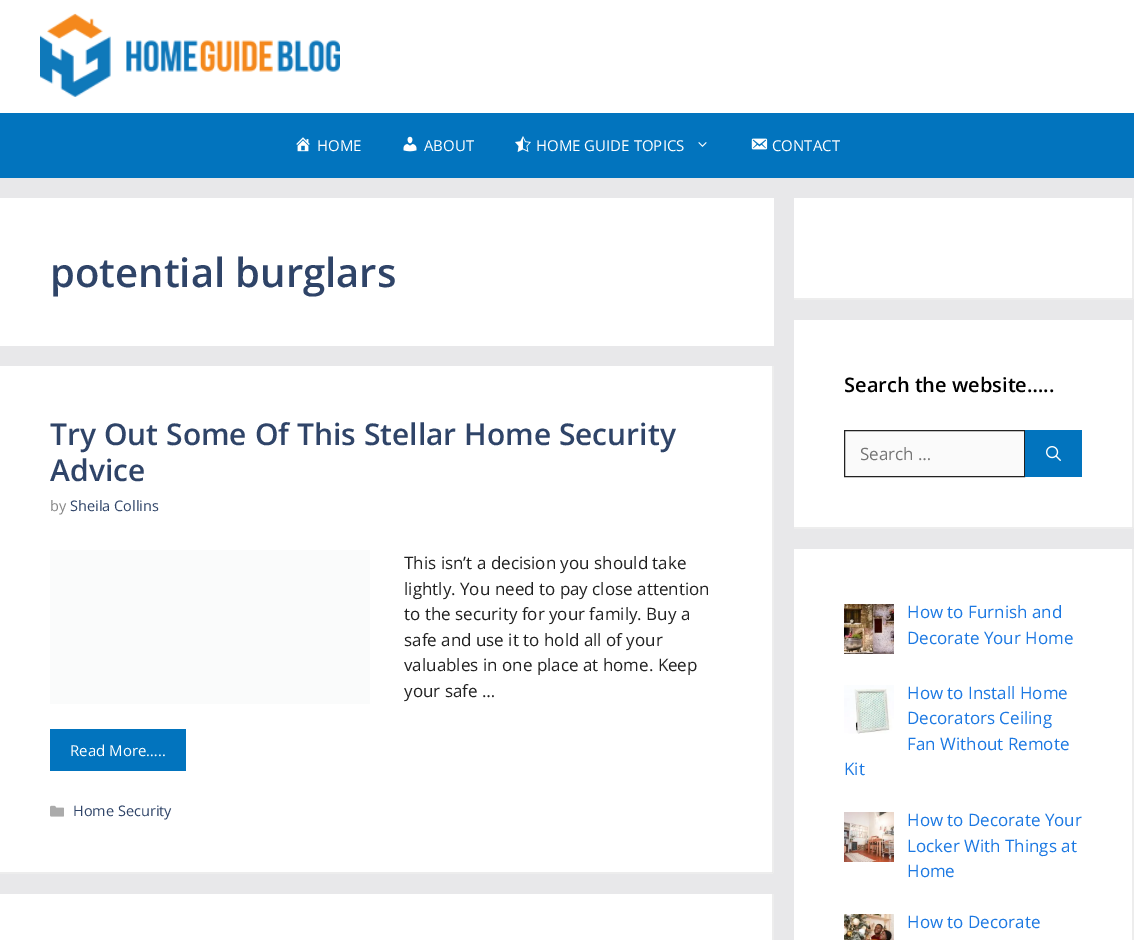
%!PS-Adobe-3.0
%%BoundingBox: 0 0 1134 940
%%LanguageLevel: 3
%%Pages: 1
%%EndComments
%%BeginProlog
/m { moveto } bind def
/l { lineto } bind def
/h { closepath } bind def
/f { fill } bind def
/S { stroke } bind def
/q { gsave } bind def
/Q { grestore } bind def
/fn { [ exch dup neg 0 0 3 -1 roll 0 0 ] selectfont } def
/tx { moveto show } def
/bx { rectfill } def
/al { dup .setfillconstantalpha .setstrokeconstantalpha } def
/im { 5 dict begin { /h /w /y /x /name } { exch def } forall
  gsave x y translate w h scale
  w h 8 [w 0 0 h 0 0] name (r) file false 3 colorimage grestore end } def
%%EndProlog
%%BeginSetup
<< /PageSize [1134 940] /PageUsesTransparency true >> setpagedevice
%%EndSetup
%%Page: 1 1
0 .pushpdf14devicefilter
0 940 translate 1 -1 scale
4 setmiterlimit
0.91 0.91 0.918 setrgbcolor
0 0 1134 940 bx
1 setgray
0 0 1134 113 bx
(image0.raw) 40 13 300 84 im
0.008 0.455 0.745 setrgbcolor
0 113 1134 65 bx
(image1.raw) 296 137 14 15 im
/OpenSans-Regular 15 fn
1 setgray
(HOME) 317 151 tx
(image2.raw) 403 136 14 16 im
(ABOUT) 424 151 tx
(image3.raw) 515 136 16 16 im
(HOME GUIDE TOPICS) 536 151 tx
(image4.raw) 698 142 9 5 im
(image5.raw) 751 138 17 12 im
(CONTACT) 772 151 tx
0 198 774 148 bx
/OpenSans-SemiBold 40 fn
0.184 0.267 0.408 setrgbcolor
(potential burglars) 50 287 tx
1 setgray
0 366 774 508 bx
0.929 setgray
774 366 m 774 874 l 772 872 l 772 366 l h f
0.07 al
0 setgray
774 874 m 0 874 l 0 872 l 772 872 l h f
/OpenSans-SemiBold 30 fn
1 al
0.184 0.267 0.408 setrgbcolor
(Try Out Some Of This Stellar Home Security) 50 445 tx
(Advice) 50 481 tx
/OpenSans-Regular 14.5 fn
0.529 setgray
(by) 50 511 tx
0.184 0.267 0.408 setrgbcolor
(Sheila Collins) 70 511 tx
0.98 0.984 0.984 setrgbcolor
50 550 320 154 bx
/OpenSans-Regular 17 fn
0.129 setgray
(This isn’t a decision you should take) 404 569 tx
(lightly. You need to pay close attention) 404 595 tx
(to the security for your family. Buy a) 404 620 tx
(safe and use it to hold all of your) 404 646 tx
(valuables in one place at home. Keep) 404 671 tx
(your safe …) 404 697 tx
0.008 0.455 0.745 setrgbcolor
50 729 136 42 bx
/OpenSans-Regular 15 fn
1 setgray
(Read More…..) 70 756 tx
(image6.raw) 50 805 14 12 im
/OpenSans-Regular 14.5 fn
0.184 0.267 0.408 setrgbcolor
(Home Security) 73 816 tx
1 setgray
0 894 772 46 bx
0.929 setgray
774 894 m 774 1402 l 772 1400 l 772 894 l h f
1 setgray
794 198 340 102 bx
0.929 setgray
1134 198 m 1134 300 l 1132 298 l 1132 198 l h f
0.07 al
0 setgray
1134 300 m 794 300 l 794 298 l 1132 298 l h f
1 al
1 setgray
794 320 340 209 bx
0.929 setgray
1134 320 m 1134 529 l 1132 527 l 1132 320 l h f
0.07 al
0 setgray
1134 529 m 794 529 l 794 527 l 1132 527 l h f
/OpenSans-SemiBold 20 fn
1 al
(Search the website…..) 844 392 tx
0.98 setgray
844.5 430.5 m 1024.5 430.5 l 1024.5 476.5 l 844.5 476.5 l h q f Q
0.129 setgray
S
/OpenSans-Regular 17 fn
0.459 setgray
(Search …) 860 460 tx
0.008 0.455 0.745 setrgbcolor
1025 430 57 47 bx
(image7.raw) 1046 446 15 15 im
1 setgray
794 549 338 391 bx
0.929 setgray
1134 549 m 1134 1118 l 1132 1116 l 1132 549 l h f
(image8.raw) 844 604 50 50 im
0.106 0.471 0.886 setrgbcolor
(How to Furnish and) 907 618 tx
(Decorate Your Home) 907 644 tx
(image9.raw) 844 685 50 49 im
(How to Install Home) 907 699 tx
(Decorators Ceiling) 907 724 tx
(Fan Without Remote) 907 750 tx
(Kit) 844 775 tx
(image10.raw) 844 812 50 50 im
(How to Decorate Your) 907 826 tx
(Locker With Things at) 907 852 tx
(Home) 907 877 tx
(image11.raw) 844 914 50 26 im
(How to Decorate) 907 928 tx
.poppdf14devicefilter showpage
%%EOF
